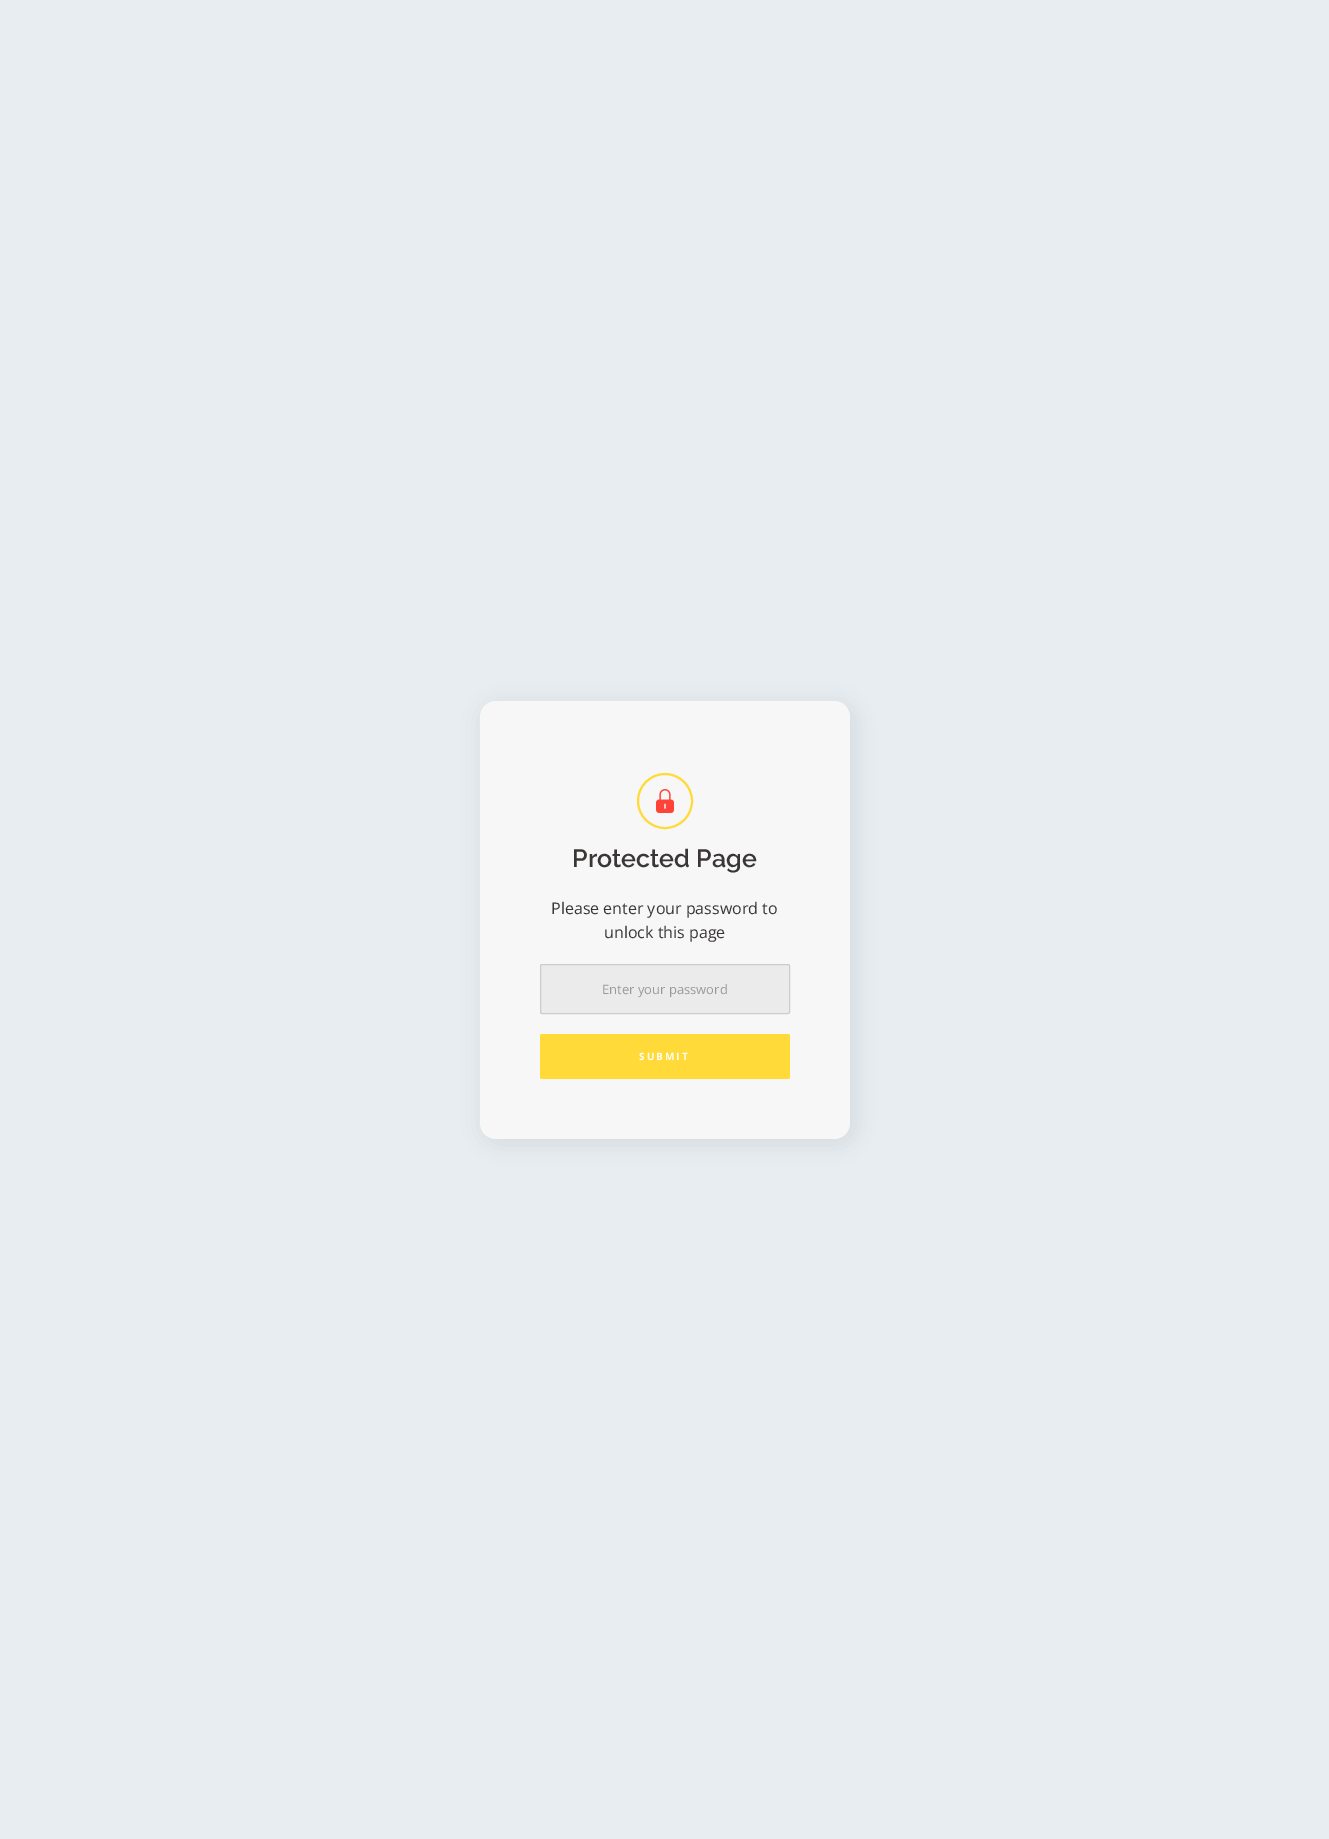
%!PS-Adobe-3.0
%%BoundingBox: 0 0 1329 1839
%%LanguageLevel: 3
%%Pages: 1
%%EndComments
%%BeginProlog
/m { moveto } bind def
/f { fill } bind def
/S { stroke } bind def
/q { gsave } bind def
/Q { grestore } bind def
/w { setlinewidth } bind def
/fn { [ exch dup neg 0 0 3 -1 roll 0 0 ] selectfont } def
/tx { moveto show } def
/bx { rectfill } def
/al { dup .setfillconstantalpha .setstrokeconstantalpha } def
/ci { newpath 0 360 arc closepath } def
/rr { 5 dict begin { /r /h /w /y /x } { exch def } forall
  x r add y moveto x w add y 2 copy h add r arct x w add y h add x 1 index r arct
  x y h add x y r arct x y 2 copy exch w add exch r arct closepath end } def
/sh { 12 dict begin { /a /b /q /h /w /y /x } { exch def } forall gsave /was 0 def
  9 -2 -9 { dup b mul 4 div /e exch def 1 sub .425 mul 2.718 exch exp 1 add a .99 .min exch div /now exch def
    1 1 now sub 1 was sub div sub al /was now def
    w h .min e 2 mul add 0 gt { x e sub y e sub w e 2 mul add h e 2 mul add
      q e add b .6 mul add w h .min 2 div e add .min 0 .max rr fill } if } for grestore end } def
/im { 5 dict begin { /h /w /y /x /name } { exch def } forall
  gsave x y translate w h scale
  w h 8 [w 0 0 h 0 0] name (r) file false 3 colorimage grestore end } def
%%EndProlog
%%BeginSetup
<< /PageSize [1329 1839] /PageUsesTransparency true >> setpagedevice
%%EndSetup
%%Page: 1 1
0 .pushpdf14devicefilter
0 1839 translate 1 -1 scale
4 setmiterlimit
0.906 0.929 0.941 setrgbcolor
0 0 1329 1839 bx
0 setgray
478 699 382 450 22 10 0.06 sh
0.969 setgray
480 701 370 438 16 rr f
1 0.855 0.22 setrgbcolor
2 w
665 801 27 ci S
(image0.raw) 656 789 18 24 im
/Raleway-SemiBold 25 fn
0.227 0.212 0.212 setrgbcolor
(Protected Page) 572 867 tx
/OpenSans-Regular 16 fn
(Please enter your password to) 551 914 tx
(unlock this page) 604 938 tx
0.922 setgray
540.5 964.5 249 49 1.5 rr q f Q
0.8 setgray
1 w
S
/OpenSans-Regular 13 fn
0.6 setgray
(Enter your password) 602 994 tx
1 0.855 0.22 setrgbcolor
540 1034 250 45 2 rr f
/OpenSans-Bold 10 fn
1 setgray
639 1060 m 2 0 (SUBMIT) ashow
.poppdf14devicefilter showpage
%%EOF
